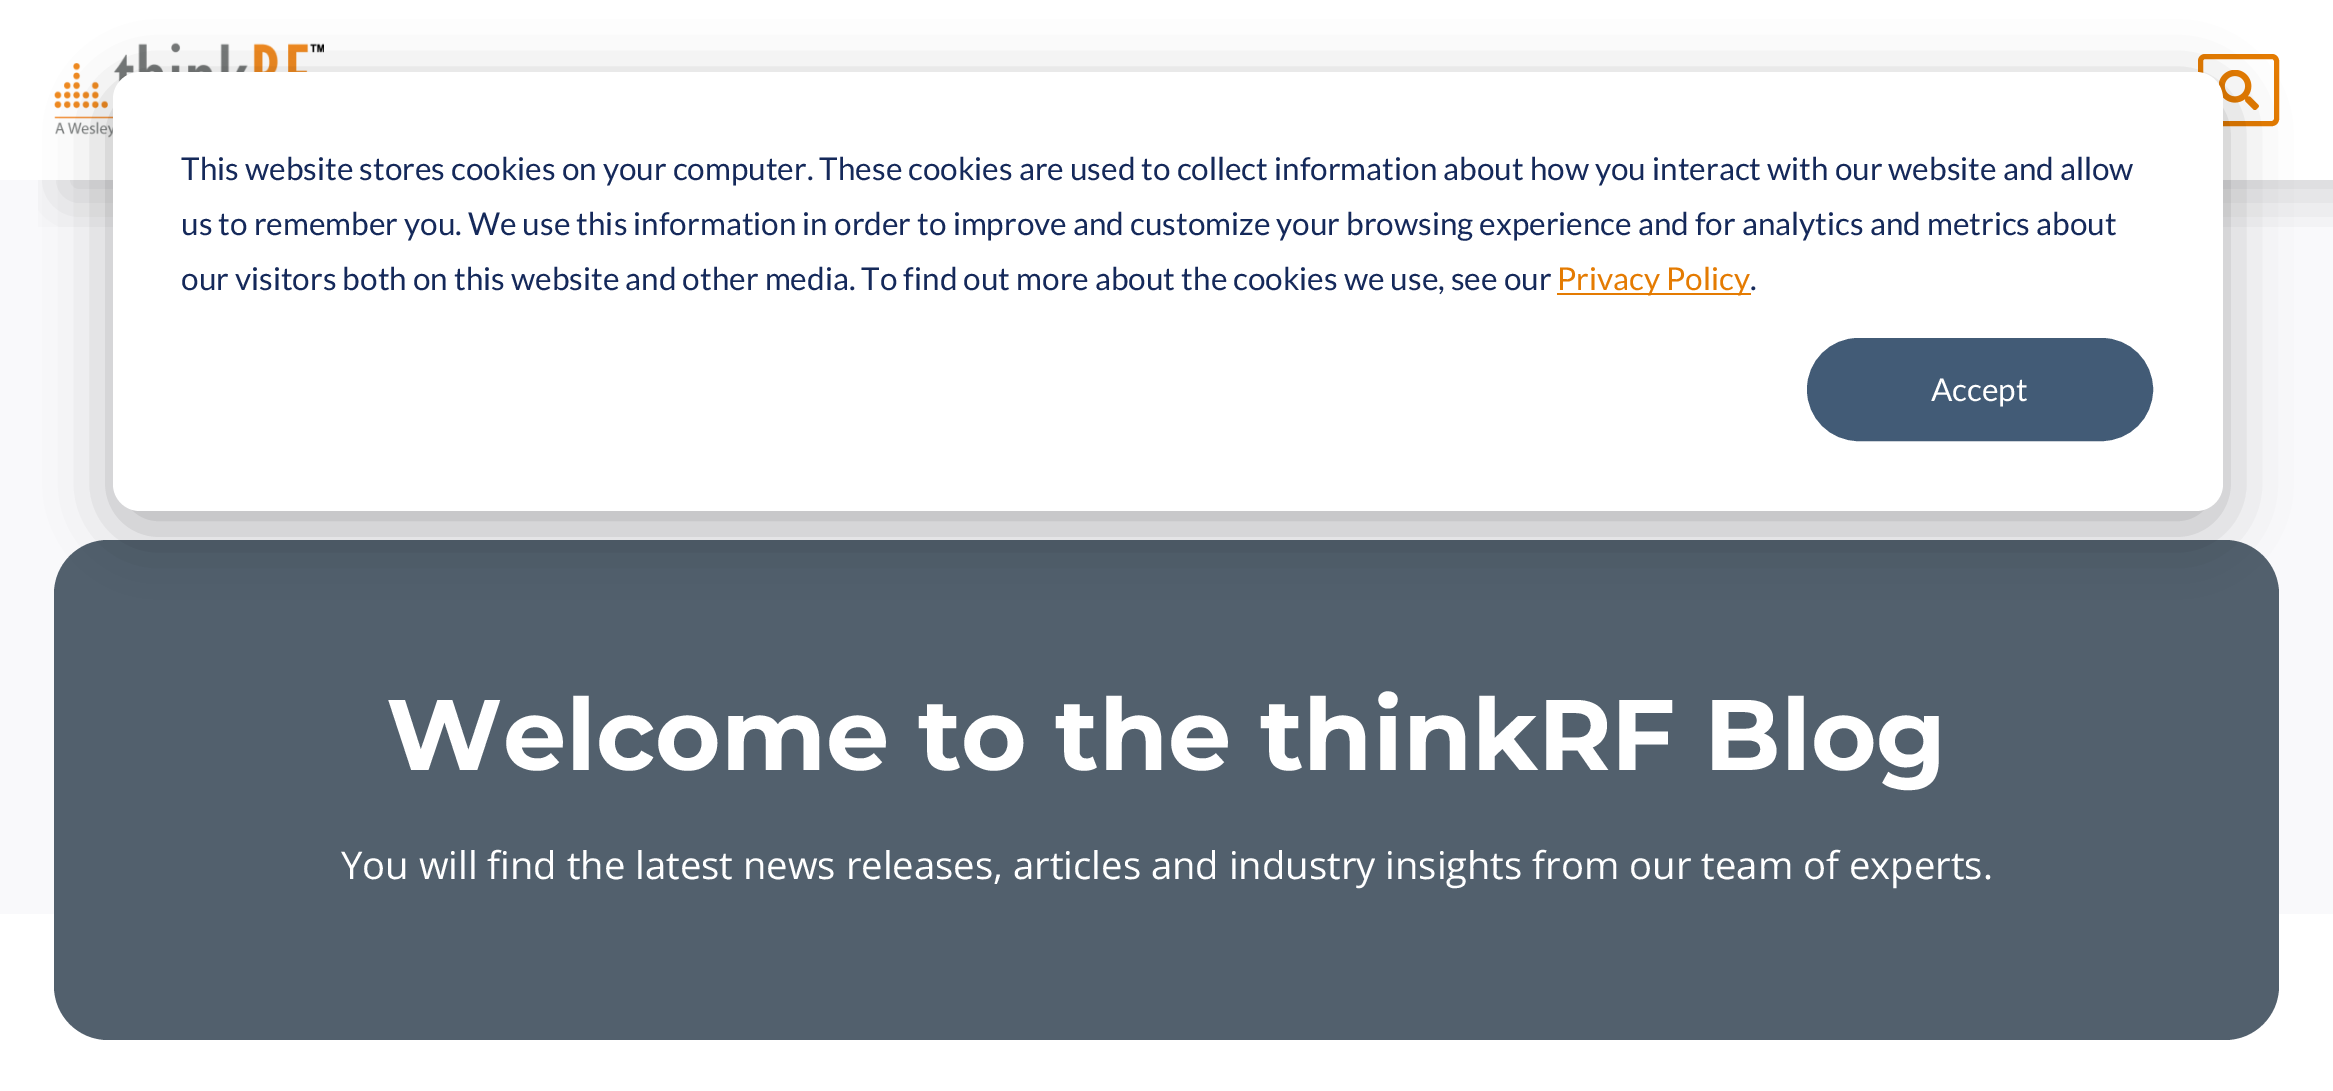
%!PS-Adobe-3.0
%%BoundingBox: 0 0 2333 1091
%%LanguageLevel: 3
%%Pages: 1
%%EndComments
%%BeginProlog
/f { fill } bind def
/S { stroke } bind def
/q { gsave } bind def
/Q { grestore } bind def
/w { setlinewidth } bind def
/fn { [ exch dup neg 0 0 3 -1 roll 0 0 ] selectfont } def
/tx { moveto show } def
/bx { rectfill } def
/al { dup .setfillconstantalpha .setstrokeconstantalpha } def
/rr { 5 dict begin { /r /h /w /y /x } { exch def } forall
  x r add y moveto x w add y 2 copy h add r arct x w add y h add x 1 index r arct
  x y h add x y r arct x y 2 copy exch w add exch r arct closepath end } def
/sh { 12 dict begin { /a /b /q /h /w /y /x } { exch def } forall gsave /was 0 def
  9 -2 -9 { dup b mul 4 div /e exch def 1 sub .425 mul 2.718 exch exp 1 add a .99 .min exch div /now exch def
    1 1 now sub 1 was sub div sub al /was now def
    w h .min e 2 mul add 0 gt { x e sub y e sub w e 2 mul add h e 2 mul add
      q e add b .6 mul add w h .min 2 div e add .min 0 .max rr fill } if } for grestore end } def
/im { 5 dict begin { /h /w /y /x /name } { exch def } forall
  gsave x y translate w h scale
  w h 8 [w 0 0 h 0 0] name (r) file false 3 colorimage grestore end } def
%%EndProlog
%%BeginSetup
<< /PageSize [2333 1091] /PageUsesTransparency true >> setpagedevice
%%EndSetup
%%Page: 1 1
0 .pushpdf14devicefilter
0 1091 translate 1 -1 scale
4 setmiterlimit
1 setgray
0 0 2333 1091 bx
0.976 0.976 0.984 setrgbcolor
0 180 2333 734 bx
q
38 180 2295 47 rectclip
0 setgray
63 52 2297 144 0 28 0.15 sh
Q
(image0.raw) 54 42 270 96 im
0.894 0.482 0.008 setrgbcolor
5 w
2200.5 56.5 76 67 4.5 rr S
(image1.raw) 2219 70 40 40 im
0.322 0.376 0.427 setrgbcolor
54 540 2225 500 54 rr f
0 setgray
113 90 2110 439 27 31.5 0.28 sh
1 setgray
113 72 2110 439 27 rr f
/Lato-Regular 31.5 fn
0.082 0.161 0.353 setrgbcolor
(This website stores cookies on your computer. These cookies are used to collect information about how you interact with our website and allow) 181 180 tx
(us to remember you. We use this information in order to improve and customize your browsing experience and for analytics and metrics about) 181 235 tx
(our visitors both on this website and other media. To find out more about the cookies we use, see our) 181 290 tx
0.894 0.482 0.008 setrgbcolor
1557 293 194 2 bx
(Privacy Policy) 1557 290 tx
0.082 0.161 0.353 setrgbcolor
(.) 1750 290 tx
0.259 0.357 0.463 setrgbcolor
1808 339 344 101 50.5 rr q f Q
2 w
S
1 setgray
(Accept) 1931 401 tx
/Montserrat-Bold 100.25 fn
(Welcome to the thinkRF Blog) 386 770 tx
/OpenSans-Regular 38.25 fn
(You will find the latest news releases, articles and industry insights from our team of experts.) 341 879 tx
.poppdf14devicefilter showpage
%%EOF
